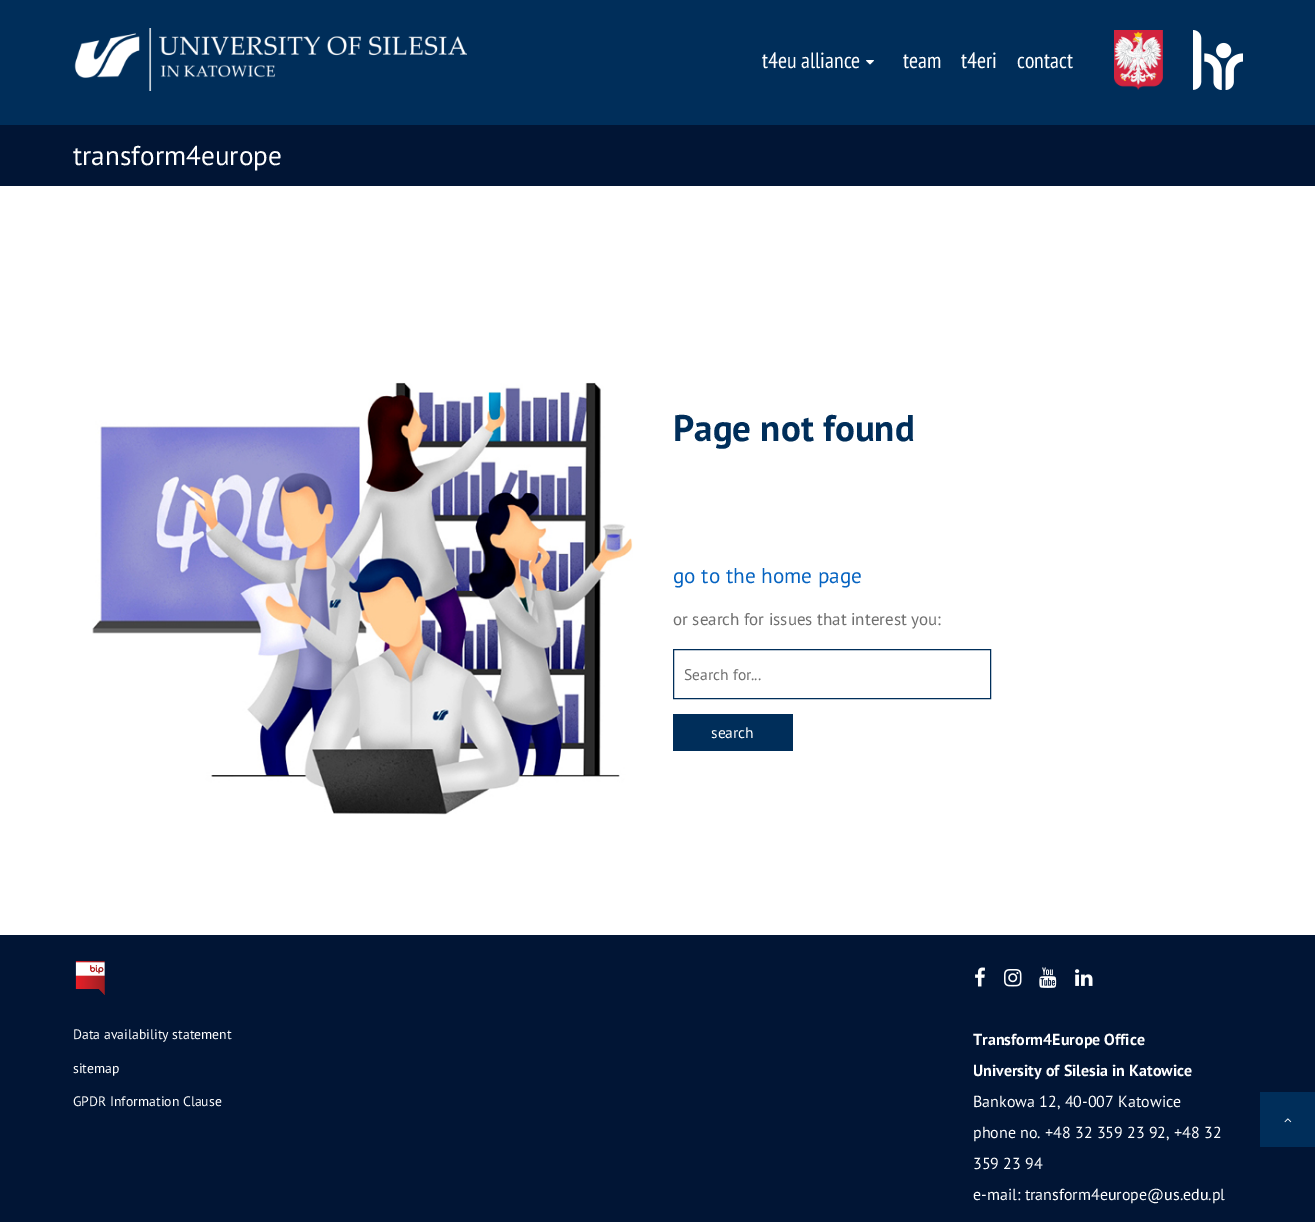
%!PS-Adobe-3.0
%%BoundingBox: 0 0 1315 1222
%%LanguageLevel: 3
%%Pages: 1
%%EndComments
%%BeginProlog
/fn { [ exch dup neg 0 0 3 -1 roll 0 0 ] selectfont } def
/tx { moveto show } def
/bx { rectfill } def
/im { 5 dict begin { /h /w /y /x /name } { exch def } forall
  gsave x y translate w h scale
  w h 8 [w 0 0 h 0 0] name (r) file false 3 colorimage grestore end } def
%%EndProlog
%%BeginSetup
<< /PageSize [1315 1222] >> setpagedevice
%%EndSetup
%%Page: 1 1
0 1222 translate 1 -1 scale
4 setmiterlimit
1 setgray
0 0 1315 1222 bx
0 0.18 0.353 setrgbcolor
0 0 1315 125 bx
(image0.raw) 74 28 393 63 im
/PTSansNarrow-Regular 22 fn
1 setgray
(t4eu alliance) 762 68 tx
(image1.raw) 866 60 8 5 im
(team) 903 68 tx
(t4eri) 961 68 tx
(contact) 1017 68 tx
(image2.raw) 1114 30 49 60 im
(image3.raw) 1193 30 50 60 im
0.004 0.082 0.208 setrgbcolor
0 125 1315 61 bx
/PTSans-Regular 27.25 fn
1 setgray
(transform4europe) 73 165 tx
(image4.raw) 92 382 541 433 im
/PTSans-Bold 37 fn
0 0.18 0.353 setrgbcolor
(Page not found) 673 441 tx
/PTSans-Regular 21.25 fn
0.02 0.388 0.757 setrgbcolor
(go to the home page) 673 583 tx
/PTSans-Regular 17 fn
0.439 setgray
(or search for issues that interest you:) 673 625 tx
0 0.18 0.353 setrgbcolor
673.5 649.5 317 49 rectstroke
/PTSans-Regular 15.5 fn
0.439 setgray
(Search for...) 684 680 tx
0 0.18 0.353 setrgbcolor
673 714 120 37 bx
1 setgray
(search) 711 738 tx
0.004 0.082 0.208 setrgbcolor
0 935 1315 287 bx
(image5.raw) 75 961 30 34 im
(image6.raw) 975 967 10 20 im
(image7.raw) 1004 969 18 18 im
(image8.raw) 1039 967 18 21 im
(image9.raw) 1075 969 18 17 im
/PTSans-Regular 13.75 fn
1 setgray
(Data availability statement) 73 1039 tx
(sitemap) 73 1073 tx
(GPDR Information Clause) 73 1106 tx
/PTSans-Bold 16 fn
(Transform4Europe Office) 973 1045 tx
(University of Silesia in Katowice) 973 1076 tx
/PTSans-Regular 16 fn
(Bankowa 12, 40-007 Katowice) 973 1107 tx
(phone no. +48 32 359 23 92, +48 32) 973 1138 tx
(359 23 94) 973 1169 tx
(e-mail: transform4europe@us.edu.pl) 973 1200 tx
0 0.18 0.353 setrgbcolor
1260 1092 55 55 bx
(image10.raw) 1284 1118 8 5 im
showpage
%%EOF
